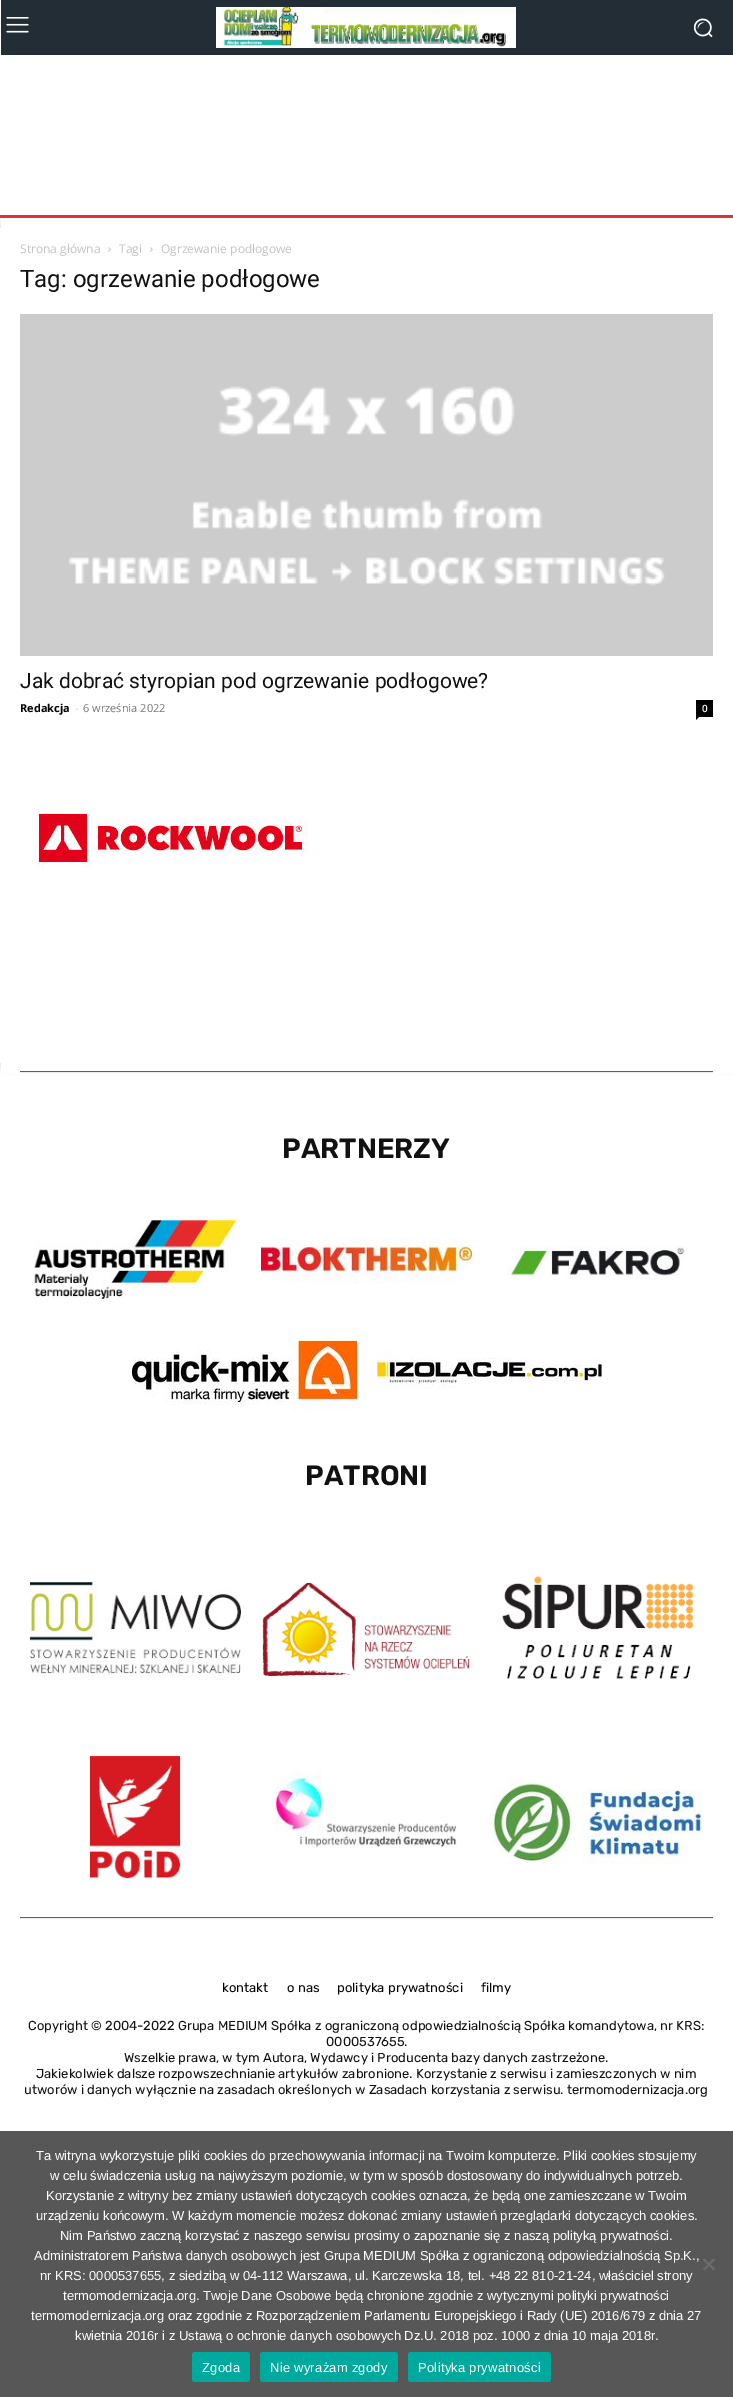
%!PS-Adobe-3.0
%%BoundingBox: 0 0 733 2397
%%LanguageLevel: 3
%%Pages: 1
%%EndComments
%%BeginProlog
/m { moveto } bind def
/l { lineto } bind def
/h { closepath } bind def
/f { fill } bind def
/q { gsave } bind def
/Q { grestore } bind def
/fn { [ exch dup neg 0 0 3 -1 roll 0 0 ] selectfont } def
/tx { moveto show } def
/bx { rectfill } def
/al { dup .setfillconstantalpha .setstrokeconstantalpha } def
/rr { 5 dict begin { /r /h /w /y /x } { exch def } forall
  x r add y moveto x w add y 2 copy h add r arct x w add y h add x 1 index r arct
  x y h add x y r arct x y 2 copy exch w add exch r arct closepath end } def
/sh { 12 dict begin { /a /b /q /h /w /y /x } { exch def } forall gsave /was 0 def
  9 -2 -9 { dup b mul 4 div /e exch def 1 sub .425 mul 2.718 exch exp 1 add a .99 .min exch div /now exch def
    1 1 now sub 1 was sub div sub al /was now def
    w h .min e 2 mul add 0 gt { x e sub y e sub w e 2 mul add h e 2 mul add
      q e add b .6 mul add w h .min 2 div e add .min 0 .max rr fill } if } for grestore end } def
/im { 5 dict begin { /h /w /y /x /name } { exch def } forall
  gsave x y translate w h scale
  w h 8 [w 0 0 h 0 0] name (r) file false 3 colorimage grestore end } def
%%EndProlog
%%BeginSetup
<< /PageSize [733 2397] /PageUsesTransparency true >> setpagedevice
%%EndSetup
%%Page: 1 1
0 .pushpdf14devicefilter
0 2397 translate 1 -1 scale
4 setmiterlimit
1 setgray
0 0 733 2397 bx
0.137 0.176 0.208 setrgbcolor
1 0 732 55 bx
(image0.raw) 6 17 23 16 im
(image1.raw) 216 7 300 41 im
(image2.raw) 693 18 20 20 im
q
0 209 m 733 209 l 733 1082 l 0 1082 l h 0 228 m 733 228 l 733 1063 l 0 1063 l h eoclip newpath
0 setgray
-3 225 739 841 0 5 0.12 sh
Q
0.867 0.2 0.2 setrgbcolor
0 215 733 3 bx
1 setgray
1 218 732 10 bx
/OpenSans-Regular 12 fn
0.765 setgray
(Strona główna) 20 253 tx
(image3.raw) 108 247 3 5 im
(Tagi) 119 253 tx
(image3.raw) 150 247 3 5 im
(Ogrzewanie podłogowe) 161 253 tx
/Roboto-Regular 24 fn
0.067 setgray
(Tag: ogrzewanie podłogowe) 20 287 tx
(image4.raw) 20 314 693 342 im
/Roboto-Regular 21 fn
(Jak dobrać styropian pod ogrzewanie podłogowe?) 20 688 tx
/OpenSans-Bold 11 fn
0 setgray
(Redakcja) 20 712 tx
/OpenSans-Regular 11 fn
0.8 setgray
(-) 75 712 tx
0.463 setgray
(6 września 2022) 83 712 tx
0 setgray
696 700 17 17 bx
/OpenSans-SemiBold 10 fn
1 setgray
(0) 702 712 tx
0 setgray
696 717 m 699 717 l 696 720 l h f
(image5.raw) 36 812 272 56 im
1 setgray
1 1063 732 10 bx
0.882 0.157 0.118 setrgbcolor
20 1071 693 1 bx
0.922 setgray
20 1072 693 1 bx
/Rubik-SemiBold 28 fn
0.067 setgray
(PARTNERZY) 282 1158 tx
(image6.raw) 34 1220 203 79 im
(image7.raw) 261 1238 211 46 im
(image8.raw) 507 1245 180 34 im
(image9.raw) 132 1333 225 80 im
(image10.raw) 377 1349 225 40 im
(PATRONI) 305 1485 tx
(image11.raw) 30 1580 211 98 im
(image12.raw) 262 1582 208 94 im
(image13.raw) 502 1576 192 103 im
(image14.raw) 90 1756 91 123 im
(image15.raw) 275 1771 182 77 im
(image16.raw) 492 1775 211 90 im
0.867 0.2 0.2 setrgbcolor
20 1917 693 1 bx
0.922 setgray
20 1918 693 1 bx
/Rubik-Regular 13 fn
0 setgray
(kontakt) 222 1992 tx
(o nas) 287 1992 tx
(polityka prywatności) 337 1992 tx
(filmy) 481 1992 tx
0.067 setgray
(Copyright © 2004-2022 Grupa MEDIUM Spółka z ograniczoną odpowiedzialnością Spółka komandytowa, nr KRS:) 28 2030 tx
(0000537655.) 326 2046 tx
(Wszelkie prawa, w tym Autora, Wydawcy i Producenta bazy danych zastrzeżone.) 124 2062 tx
(Jakiekolwiek dalsze rozpowszechnianie artykułów zabronione. Korzystanie z serwisu i zamieszczonych w nim) 36 2078 tx
(utworów i danych wyłącznie na zasadach określonych w Zasadach korzystania z serwisu. termomodernizacja.org) 24 2094 tx
0.341 setgray
0 2131 733 266 bx
/LiberationSans-Regular 13 fn
1 setgray
(Ta witryna wykorzystuje pliki cookies do przechowywania informacji na Twoim komputerze. Pliki cookies stosujemy) 36 2160 tx
(w celu świadczenia usług na najwyższym poziomie, w tym w sposób dostosowany do indywidualnych potrzeb.) 50 2180 tx
(Korzystanie z witryny bez zmiany ustawień dotyczących cookies oznacza, że będą one zamieszczane w Twoim) 46 2200 tx
(urządzeniu końcowym. W każdym momencie możesz dokonać zmiany ustawień przeglądarki dotyczących cookies.) 36 2220 tx
(Nim Państwo zaczną korzystać z naszego serwisu prosimy o zapoznanie się z naszą polityką prywatności.) 60 2240 tx
(Administratorem Państwa danych osobowych jest Grupa MEDIUM Spółka z ograniczoną odpowiedzialnością Sp.K.,) 34 2260 tx
(nr KRS: 0000537655, z siedzibą w 04-112 Warszawa, ul. Karczewska 18, tel. +48 22 810-21-24, właściciel strony) 40 2280 tx
(termomodernizacja.org. Twoje Dane Osobowe będą chronione zgodnie z wytycznymi polityki prywatności) 63 2300 tx
(termomodernizacja.org oraz zgodnie z Rozporządzeniem Parlamentu Europejskiego i Rady \(UE\) 2016/679 z dnia 27) 31 2320 tx
(kwietnia 2016r i z Ustawą o ochronie danych osobowych Dz.U. 2018 poz. 1000 z dnia 10 maja 2018r.) 75 2340 tx
0.424 setgray
713.5 2258.5 m 715 2260 l 704.5 2270.5 l 703 2269 l h f
703 2260 m 704.5 2258.5 l 715 2269 l 713.5 2270.5 l h f
0 0.663 0.616 setrgbcolor
192 2352 58 30 3 rr f
1 setgray
202 2372 m 0.25 0 (Zgoda) ashow
0 0.663 0.616 setrgbcolor
260 2352 138 30 3 rr f
1 setgray
270 2372 m 0.25 0 (Nie wyrażam zgody) ashow
0 0.663 0.616 setrgbcolor
408 2352 143 30 3 rr f
1 setgray
418 2372 m 0.25 0 (Polityka prywatności) ashow
.poppdf14devicefilter showpage
%%EOF
